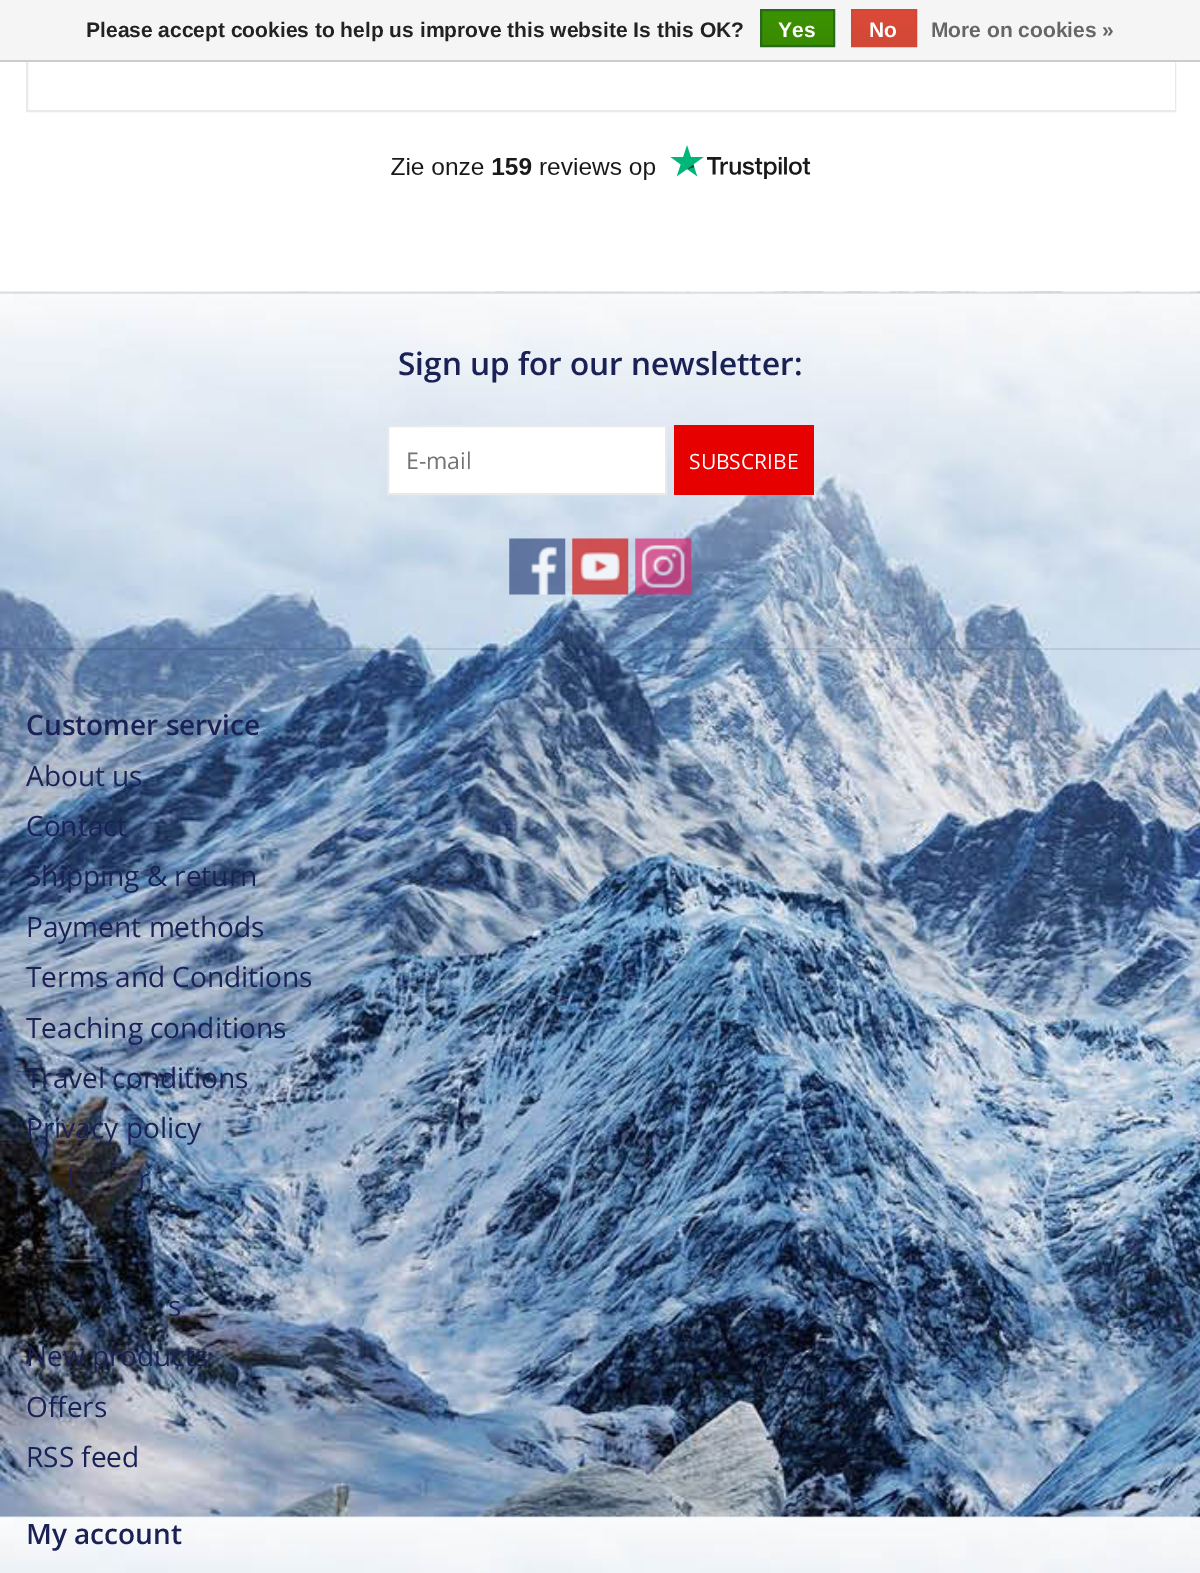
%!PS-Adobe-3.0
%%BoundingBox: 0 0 1200 1573
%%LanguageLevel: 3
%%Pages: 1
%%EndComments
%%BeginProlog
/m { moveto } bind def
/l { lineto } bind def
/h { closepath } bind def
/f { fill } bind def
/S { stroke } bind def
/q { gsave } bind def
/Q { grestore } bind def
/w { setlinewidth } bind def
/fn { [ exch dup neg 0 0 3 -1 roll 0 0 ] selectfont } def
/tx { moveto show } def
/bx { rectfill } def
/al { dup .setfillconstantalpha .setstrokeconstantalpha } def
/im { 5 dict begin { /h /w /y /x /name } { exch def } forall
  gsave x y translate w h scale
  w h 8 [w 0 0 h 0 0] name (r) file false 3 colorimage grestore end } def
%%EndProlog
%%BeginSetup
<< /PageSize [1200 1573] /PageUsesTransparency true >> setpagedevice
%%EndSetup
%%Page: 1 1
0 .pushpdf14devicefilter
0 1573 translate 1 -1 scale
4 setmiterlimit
1 setgray
0 0 1200 1573 bx
0.918 setgray
2 w
27 -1 1148 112 rectstroke
0.961 setgray
0 0 1200 60 bx
0.8 setgray
0 60 1200 2 bx
/LiberationSans-Bold 21 fn
0.133 setgray
(Please accept cookies to help us improve this website Is this OK?) 86 37 tx
q 762 11 m 833 11 l 833 45 l 762 45 l h clip newpath
<< /ShadingType 2 /ColorSpace /DeviceRGB /Coords [797 10 797 46] /Extend [true true] /Function << /FunctionType 2 /Domain [0 1] /C0 [0.235 0.576 0] /C1 [0.224 0.541 0] /N 1 >> >> shfill Q
0.161 0.412 0.114 setrgbcolor
761 10 73 36 rectstroke
1 setgray
(Yes) 778 37 tx
q 853 11 m 915 11 l 915 45 l 853 45 l h clip newpath
<< /ShadingType 2 /ColorSpace /DeviceRGB /Coords [884 10 884 46] /Extend [true true] /Function << /FunctionType 2 /Domain [0 1] /C0 [0.863 0.29 0.22] /C1 [0.82 0.282 0.212] /N 1 >> >> shfill Q
0.82 0.282 0.212 setrgbcolor
852 10 64 36 rectstroke
1 setgray
(No) 869 37 tx
0.4 setgray
(More on cookies ») 931 37 tx
1 setgray
1174 62 1 48 bx
(image0.raw) 391 145 419 35 im
(image1.raw) 0 291 1200 1282 im
0.09 al
0 setgray
0 292 1200 2 bx
/OpenSans-SemiBold 31.5 fn
1 al
0.102 0.129 0.333 setrgbcolor
(Sign up for our newsletter:) 398 375 tx
1 setgray
388 426 m 666 426 l 666 494 l 388 494 l h q f Q
0.914 setgray
S
/OpenSans-Regular 23 fn
0.459 setgray
(E-mail) 406 469 tx
0.902 0 0 setrgbcolor
674 425 140 70 bx
/OpenSans-Regular 21 fn
1 setgray
(SUBSCRIBE) 689 469 tx
(image2.raw) 509 538 57 57 im
(image3.raw) 572 538 57 57 im
(image4.raw) 635 538 57 57 im
0.09 al
0 setgray
0 648 1200 2 bx
/OpenSans-SemiBold 28 fn
1 al
0.102 0.129 0.333 setrgbcolor
(Customer service) 26 735 tx
/OpenSans-Regular 28 fn
(About us) 26 786 tx
(Contact) 26 836 tx
(Shipping & return) 26 886 tx
(Payment methods) 26 937 tx
(Terms and Conditions) 26 987 tx
(Teaching conditions) 26 1038 tx
(Travel conditions) 26 1088 tx
(Privacy policy) 26 1138 tx
(l) 67 1189 tx
(r) 138 1189 tx
(s) 168 1316 tx
(New products) 26 1366 tx
(Offers) 26 1417 tx
(RSS feed) 26 1467 tx
/OpenSans-SemiBold 28 fn
(My account) 26 1544 tx
.poppdf14devicefilter showpage
%%EOF
